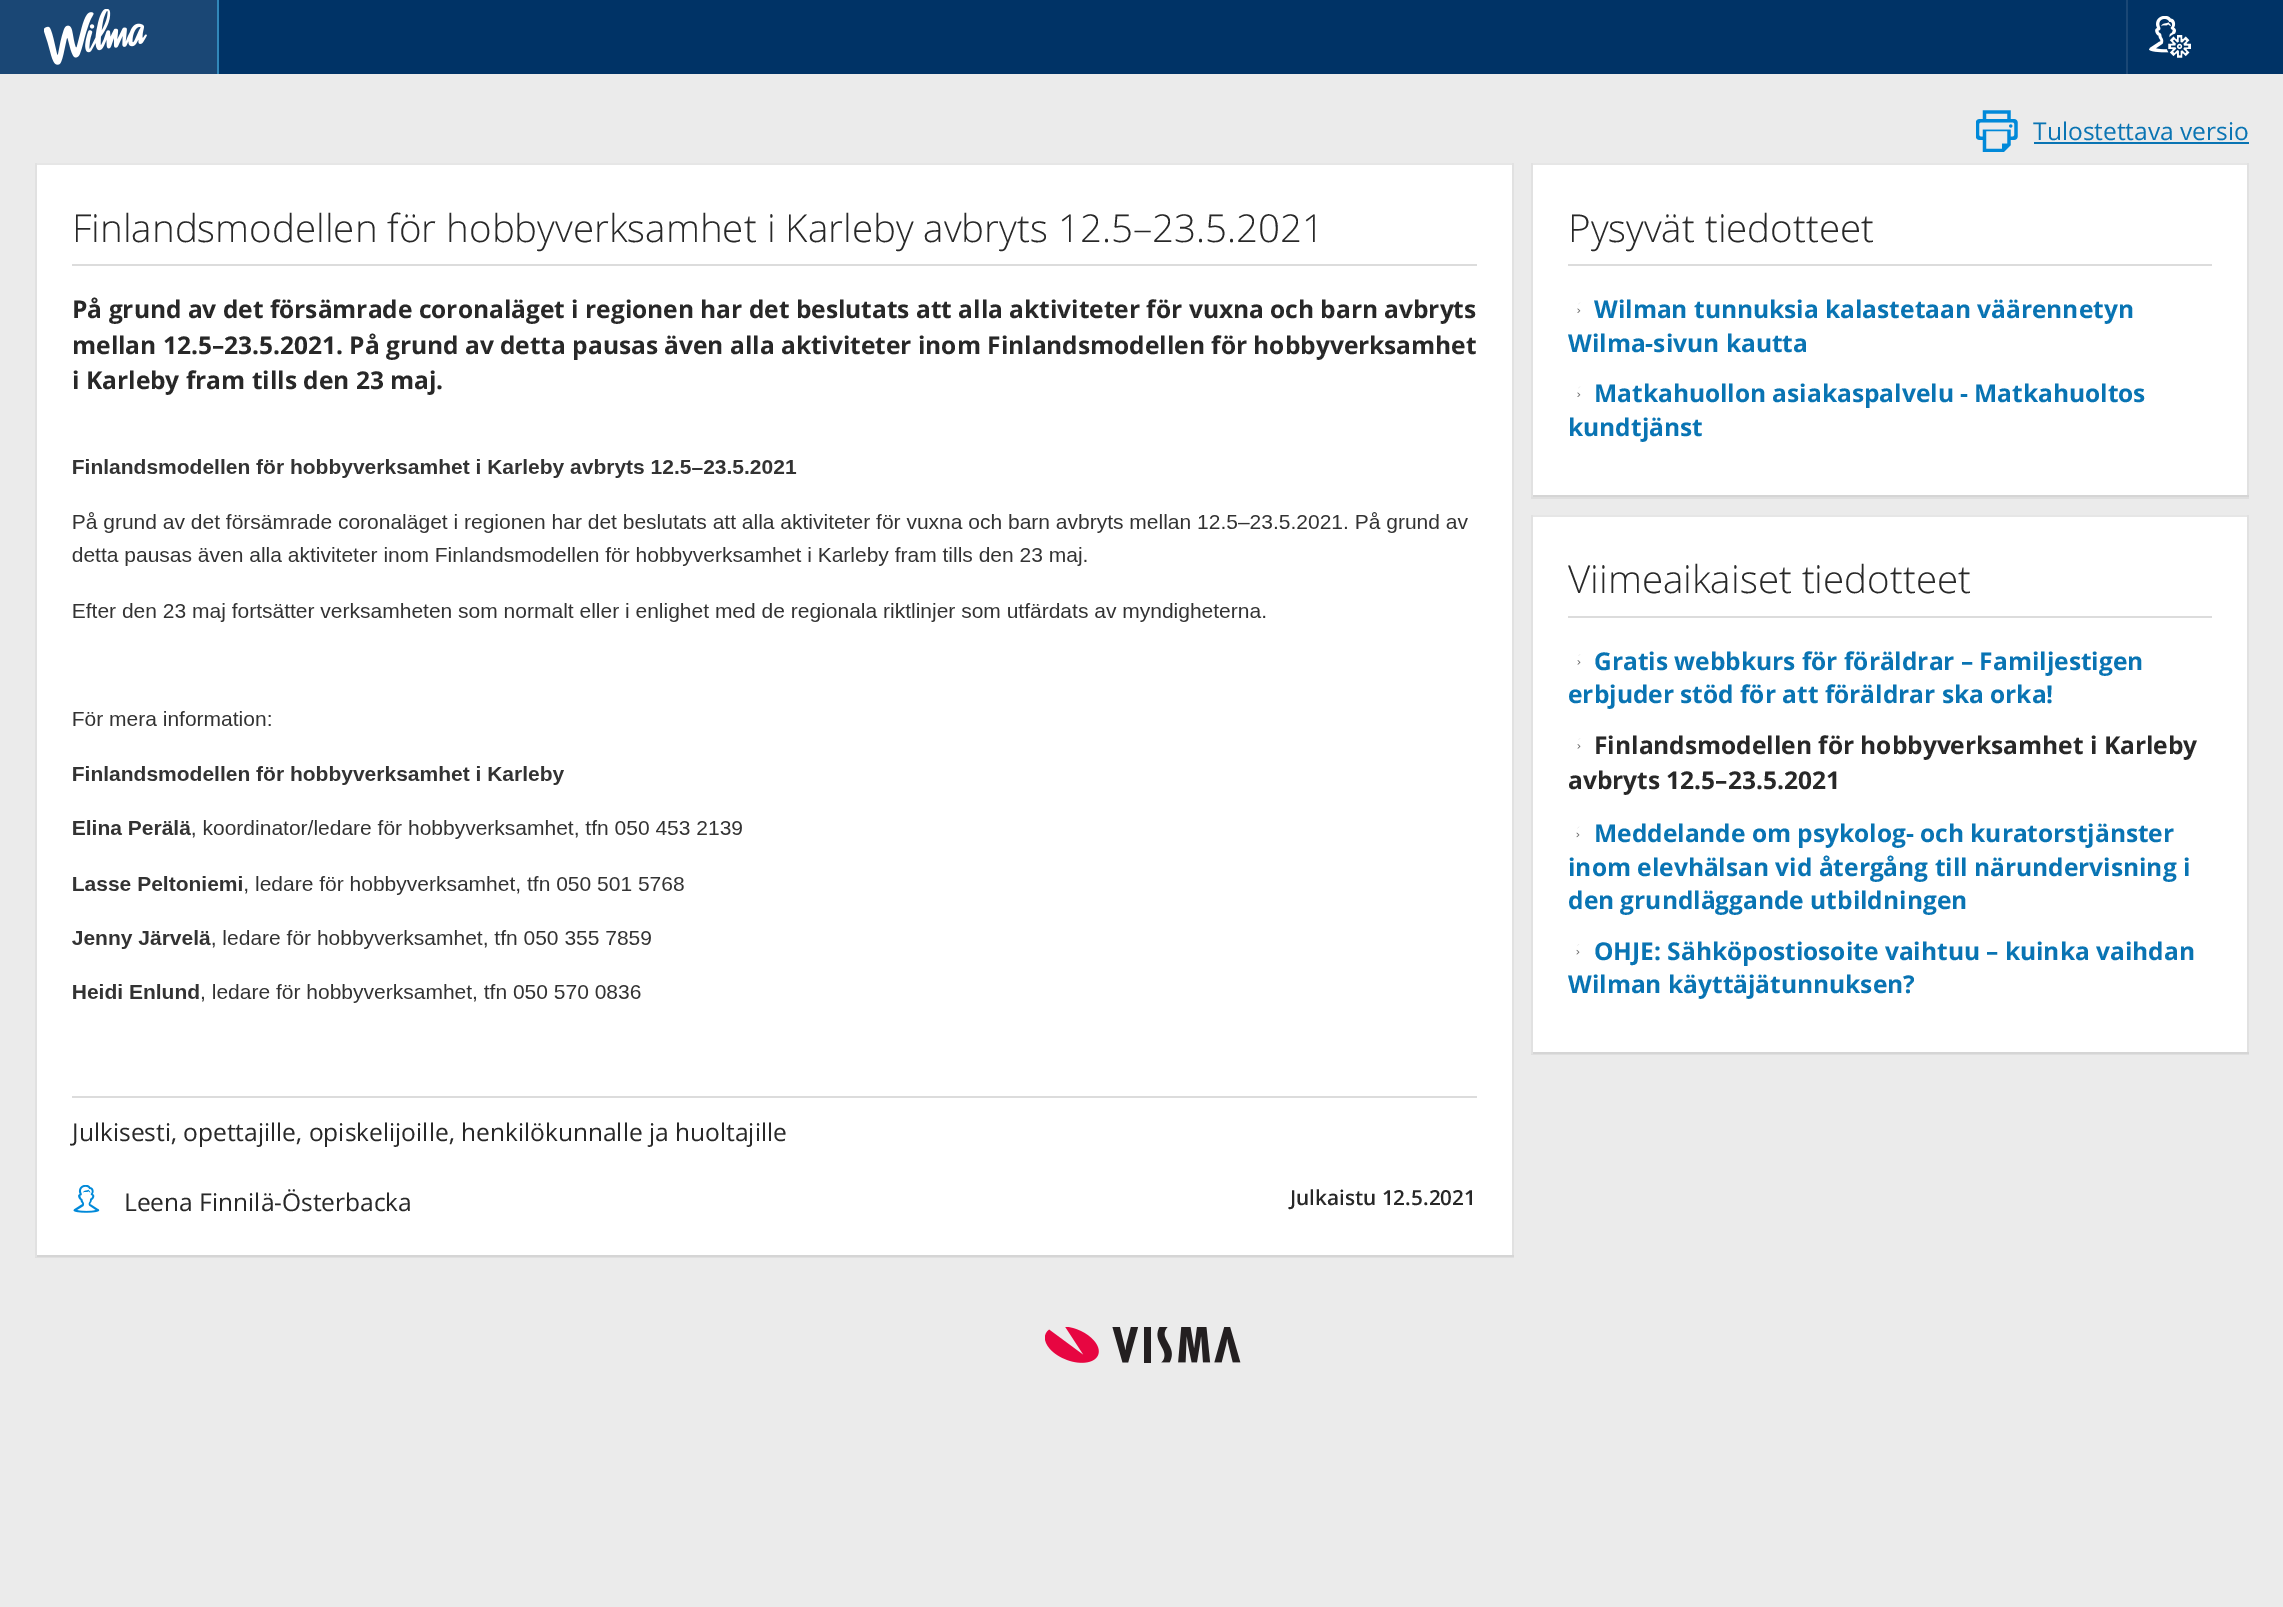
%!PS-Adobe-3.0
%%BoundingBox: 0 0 2283 1607
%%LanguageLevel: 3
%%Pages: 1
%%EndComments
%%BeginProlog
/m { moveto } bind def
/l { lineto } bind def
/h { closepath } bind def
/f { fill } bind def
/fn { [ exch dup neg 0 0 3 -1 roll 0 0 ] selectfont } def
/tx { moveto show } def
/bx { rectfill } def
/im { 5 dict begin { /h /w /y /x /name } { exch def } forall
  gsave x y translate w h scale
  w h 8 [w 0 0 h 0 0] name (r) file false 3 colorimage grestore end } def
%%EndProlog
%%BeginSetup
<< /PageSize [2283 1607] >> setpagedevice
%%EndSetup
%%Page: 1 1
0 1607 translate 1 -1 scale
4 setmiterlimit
0.922 setgray
0 0 2283 1607 bx
0 0.2 0.4 setrgbcolor
219 0 2064 74 bx
0.192 0.529 0.725 setrgbcolor
2 74 m 219 74 l 219 0 l 217 0 l 217 74 l h f
0.102 0.278 0.459 setrgbcolor
0 0 217 74 bx
(image0.raw) 44 9 103 56 im
2126 0 2 74 bx
(image1.raw) 2149 16 42 42 im
0.875 setgray
35 1256 m 35 1258 l 1514 1258 l 1514 165 l 1514 1256 l h f
1 setgray
37 165 1475 1090 bx
0.902 setgray
35 163 1479 2 bx
0.882 setgray
1512 163 2 1094 bx
0.835 setgray
35 1255 1479 2 bx
0.882 setgray
35 163 2 1094 bx
0.863 setgray
72 264 1405 2 bx
/OpenSans-Light 38.5 fn
0.157 setgray
(Finlandsmodellen för hobbyverksamhet i Karleby avbryts 12.5–23.5.2021) 72 242 tx
/OpenSans-Bold 24.5 fn
(På grund av det försämrade coronaläget i regionen har det beslutats att alla aktiviteter för vuxna och barn avbryts) 72 318 tx
(mellan 12.5–23.5.2021. På grund av detta pausas även alla aktiviteter inom Finlandsmodellen för hobbyverksamhet) 72 354 tx
(i Karleby fram tills den 23 maj.) 72 389 tx
(image2.raw) 72 459 1396 544 im
0.863 setgray
72 1096 1405 2 bx
/OpenSans-Regular 24.5 fn
0.157 setgray
(Julkisesti, opettajille, opiskelijoille, henkilökunnalle ja huoltajille) 72 1141 tx
(image3.raw) 73 1185 27 28 im
(Leena Finnilä-Österbacka) 124 1211 tx
/OpenSans-SemiBold 20.75 fn
(Julkaistu 12.5.2021) 1290 1205 tx
(image4.raw) 1976 110 42 42 im
/OpenSans-Regular 24.5 fn
0.035 0.455 0.702 setrgbcolor
(Tulostettava versio) 2033 140 tx
2034 142 215 2 bx
0.875 setgray
1531 165 m 1531 499 l 2249 499 l 2249 165 l 2249 497 l 1531 497 l h f
1 setgray
1533 165 714 330 bx
0.902 setgray
1531 163 718 2 bx
0.882 setgray
2247 163 2 334 bx
0.835 setgray
1531 495 718 2 bx
0.882 setgray
1531 163 2 334 bx
0.863 setgray
1568 264 644 2 bx
/OpenSans-Light 38.5 fn
0.157 setgray
(Pysyvät tiedotteet) 1568 242 tx
(image5.raw) 1577 302 4 11 im
/OpenSans-Bold 24.5 fn
0.035 0.455 0.702 setrgbcolor
(Wilman tunnuksia kalastetaan väärennetyn) 1594 318 tx
(Wilma-sivun kautta) 1568 352 tx
(image5.raw) 1577 386 4 11 im
(Matkahuollon asiakaspalvelu - Matkahuoltos) 1594 402 tx
(kundtjänst) 1568 436 tx
0.875 setgray
1531 516 m 1531 1055 l 2249 1055 l 2249 516 l 2249 1054 l 1531 1054 l h f
1 setgray
1533 517 714 535 bx
0.902 setgray
1531 515 718 2 bx
0.882 setgray
2247 515 2 539 bx
0.835 setgray
1531 1052 718 2 bx
0.882 setgray
1531 515 2 539 bx
0.863 setgray
1568 616 644 2 bx
/OpenSans-Light 38.5 fn
0.157 setgray
(Viimeaikaiset tiedotteet) 1568 593 tx
(image6.raw) 1577 654 4 11 im
/OpenSans-Bold 24.5 fn
0.035 0.455 0.702 setrgbcolor
(Gratis webbkurs för föräldrar – Familjestigen) 1594 670 tx
(erbjuder stöd för att föräldrar ska orka!) 1568 703 tx
(image6.raw) 1577 738 4 11 im
0.157 setgray
(Finlandsmodellen för hobbyverksamhet i Karleby) 1594 754 tx
(avbryts 12.5–23.5.2021) 1568 789 tx
(image7.raw) 1576 826 4 12 im
0.035 0.455 0.702 setrgbcolor
(Meddelande om psykolog- och kuratorstjänster) 1594 842 tx
(inom elevhälsan vid återgång till närundervisning i) 1568 876 tx
(den grundläggande utbildningen) 1568 909 tx
(image8.raw) 1576 944 4 11 im
(OHJE: Sähköpostiosoite vaihtuu – kuinka vaihdan) 1594 960 tx
(Wilman käyttäjätunnuksen?) 1568 993 tx
(image9.raw) 1045 1327 196 36 im
showpage
%%EOF
